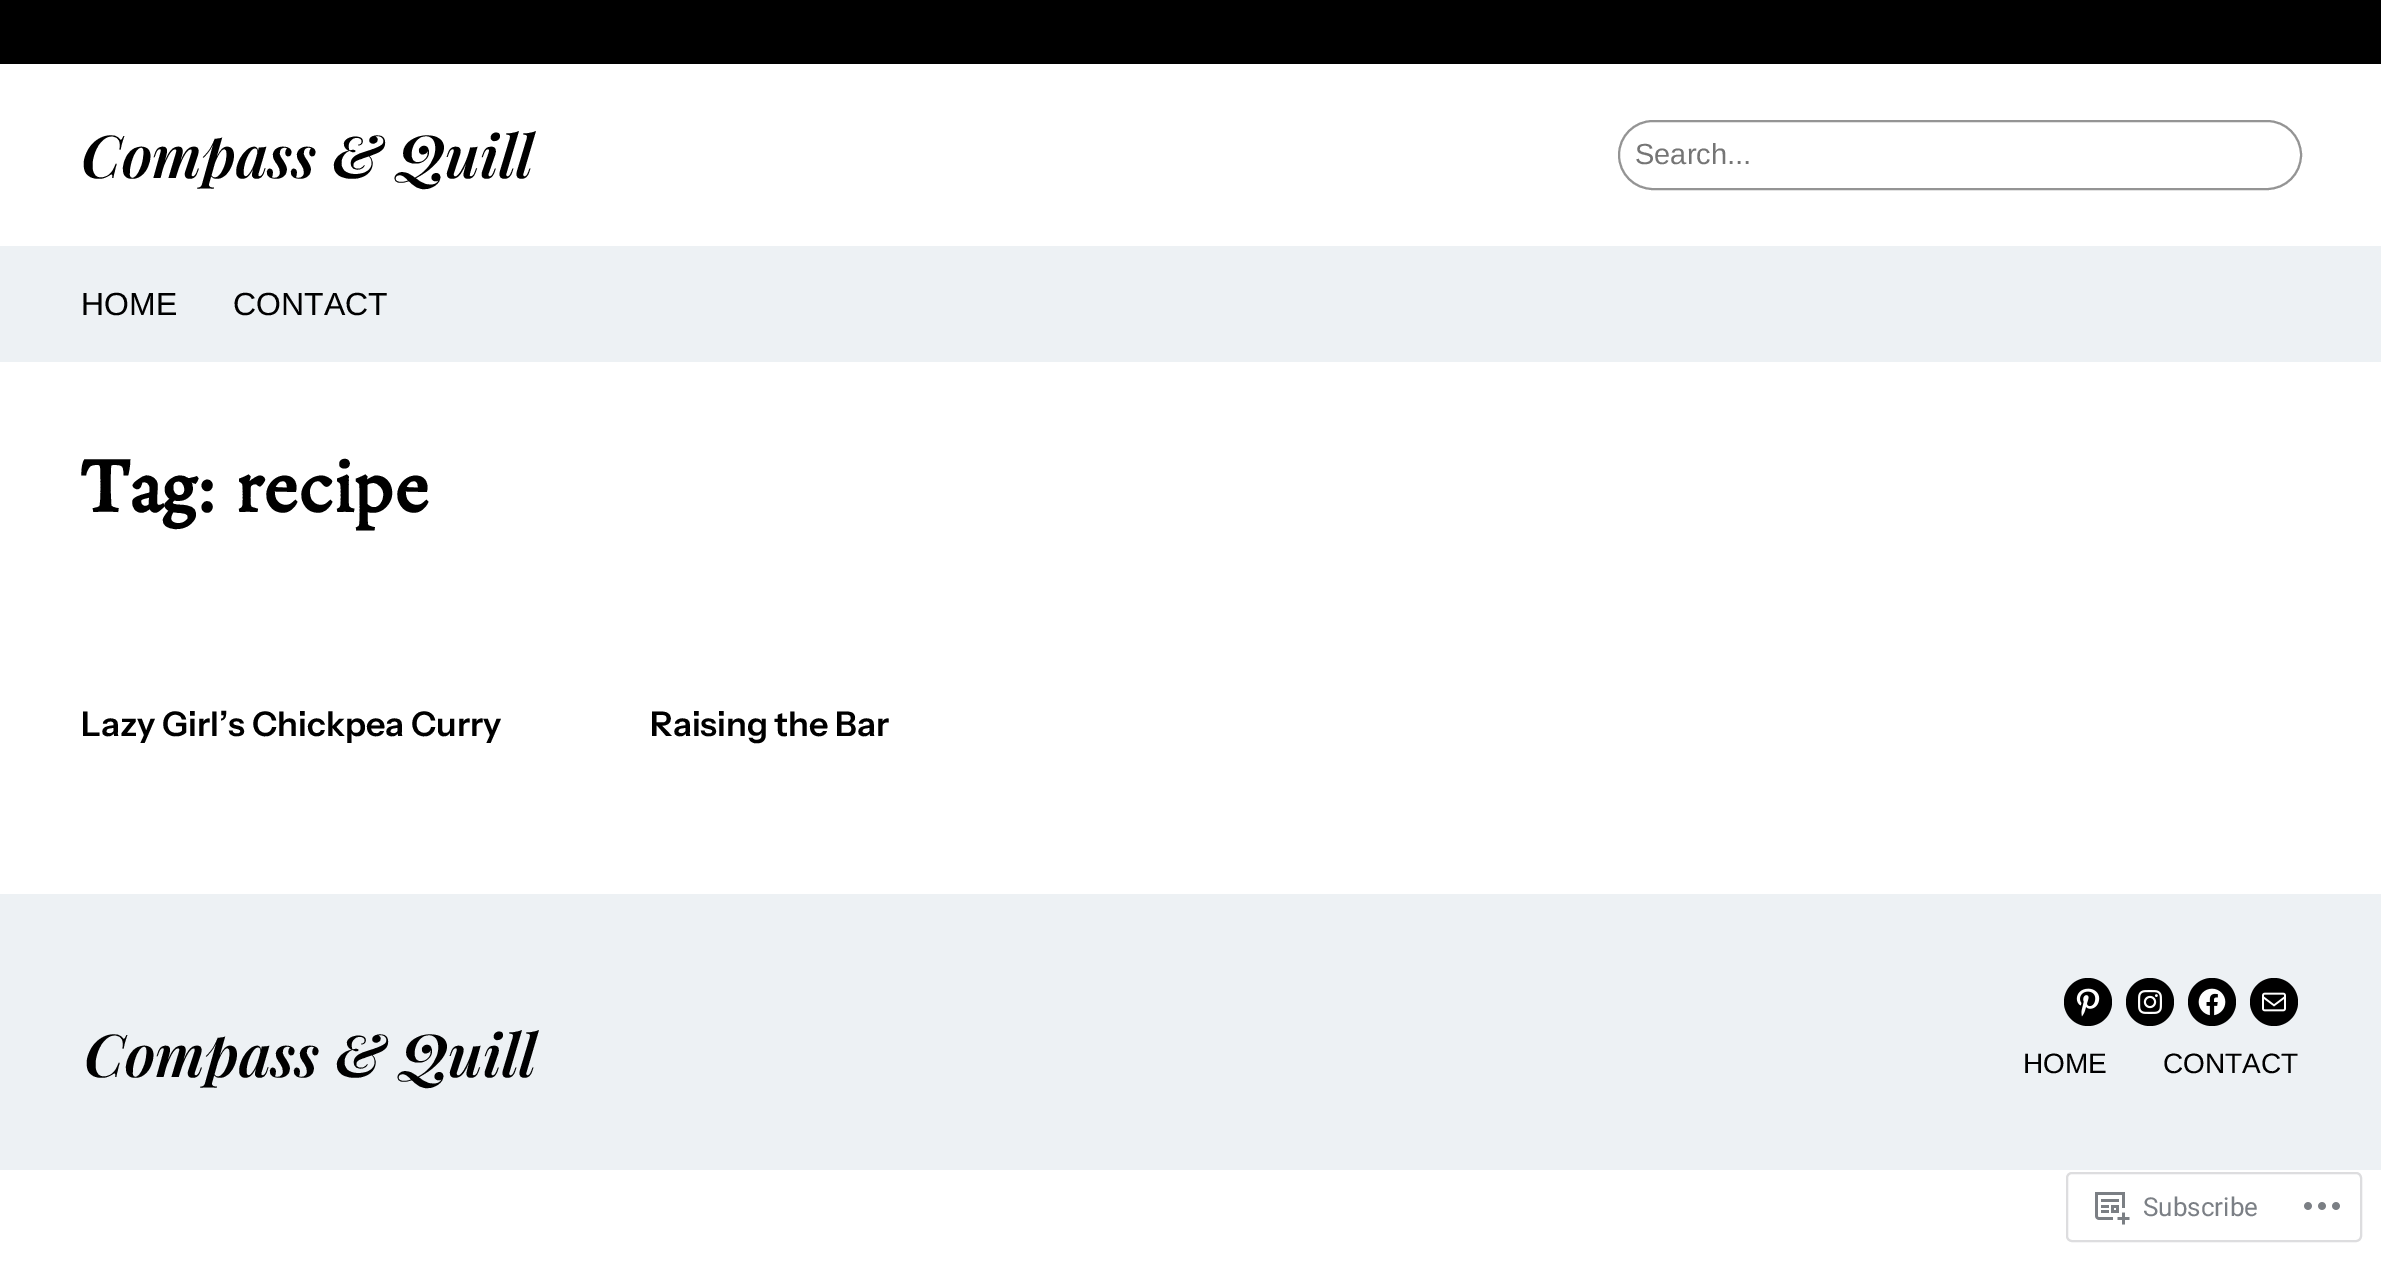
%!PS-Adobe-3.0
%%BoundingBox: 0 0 2381 1261
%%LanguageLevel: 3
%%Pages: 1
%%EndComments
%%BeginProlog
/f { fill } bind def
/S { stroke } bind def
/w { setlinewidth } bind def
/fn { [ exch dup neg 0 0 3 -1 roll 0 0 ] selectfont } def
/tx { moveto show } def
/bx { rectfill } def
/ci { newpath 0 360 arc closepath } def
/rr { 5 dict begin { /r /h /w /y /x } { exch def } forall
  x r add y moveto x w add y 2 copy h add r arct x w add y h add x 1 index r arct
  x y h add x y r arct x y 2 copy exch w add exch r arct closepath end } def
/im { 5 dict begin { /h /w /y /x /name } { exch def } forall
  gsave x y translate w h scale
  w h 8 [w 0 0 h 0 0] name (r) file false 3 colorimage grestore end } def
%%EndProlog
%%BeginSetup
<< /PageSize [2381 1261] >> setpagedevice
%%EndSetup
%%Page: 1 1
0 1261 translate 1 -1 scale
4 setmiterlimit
1 setgray
0 0 2381 1261 bx
0 setgray
0 0 2381 64 bx
/PlayfairDisplay-SemiBoldItalic 59.25 fn
(Compass & Quill) 81 178 tx
0.58 setgray
2 w
1619 121 682 68 34 rr S
/LiberationSans-Regular 29 fn
0.459 setgray
(Search...) 1635 164 tx
0.929 0.945 0.957 setrgbcolor
0 246 2381 116 bx
/LiberationSans-Regular 32 fn
0 setgray
(HOME) 81 315 tx
(CONTACT) 233 315 tx
/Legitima-Bold 80 fn
(Tag: recipe) 81 512 tx
/InstrumentSans-SemiBold 34 fn
(Lazy Girl’s Chickpea Curry) 81 736 tx
(Raising the Bar) 650 736 tx
0.929 0.945 0.957 setrgbcolor
0 894 2381 276 bx
/PlayfairDisplay-SemiBoldItalic 59.25 fn
0 setgray
(Compass & Quill) 84 1077 tx
2088 1002 24 ci f
(image0.raw) 2076 988 24 29 im
2150 1002 24 ci f
(image1.raw) 2138 990 24 24 im
2212 1002 24 ci f
(image2.raw) 2198 988 28 28 im
2274 1002 24 ci f
(image3.raw) 2262 992 24 20 im
/LiberationSans-Regular 28 fn
(HOME) 2023 1073 tx
(CONTACT) 2163 1073 tx
0.867 0.867 0.875 setrgbcolor
2067 1173 294 68 5 rr S
(image4.raw) 2095 1192 35 33 im
/Roboto-Regular 26 fn
0.482 0.498 0.522 setrgbcolor
(Subscribe) 2143 1216 tx
(image5.raw) 2304 1202 36 8 im
showpage
%%EOF
